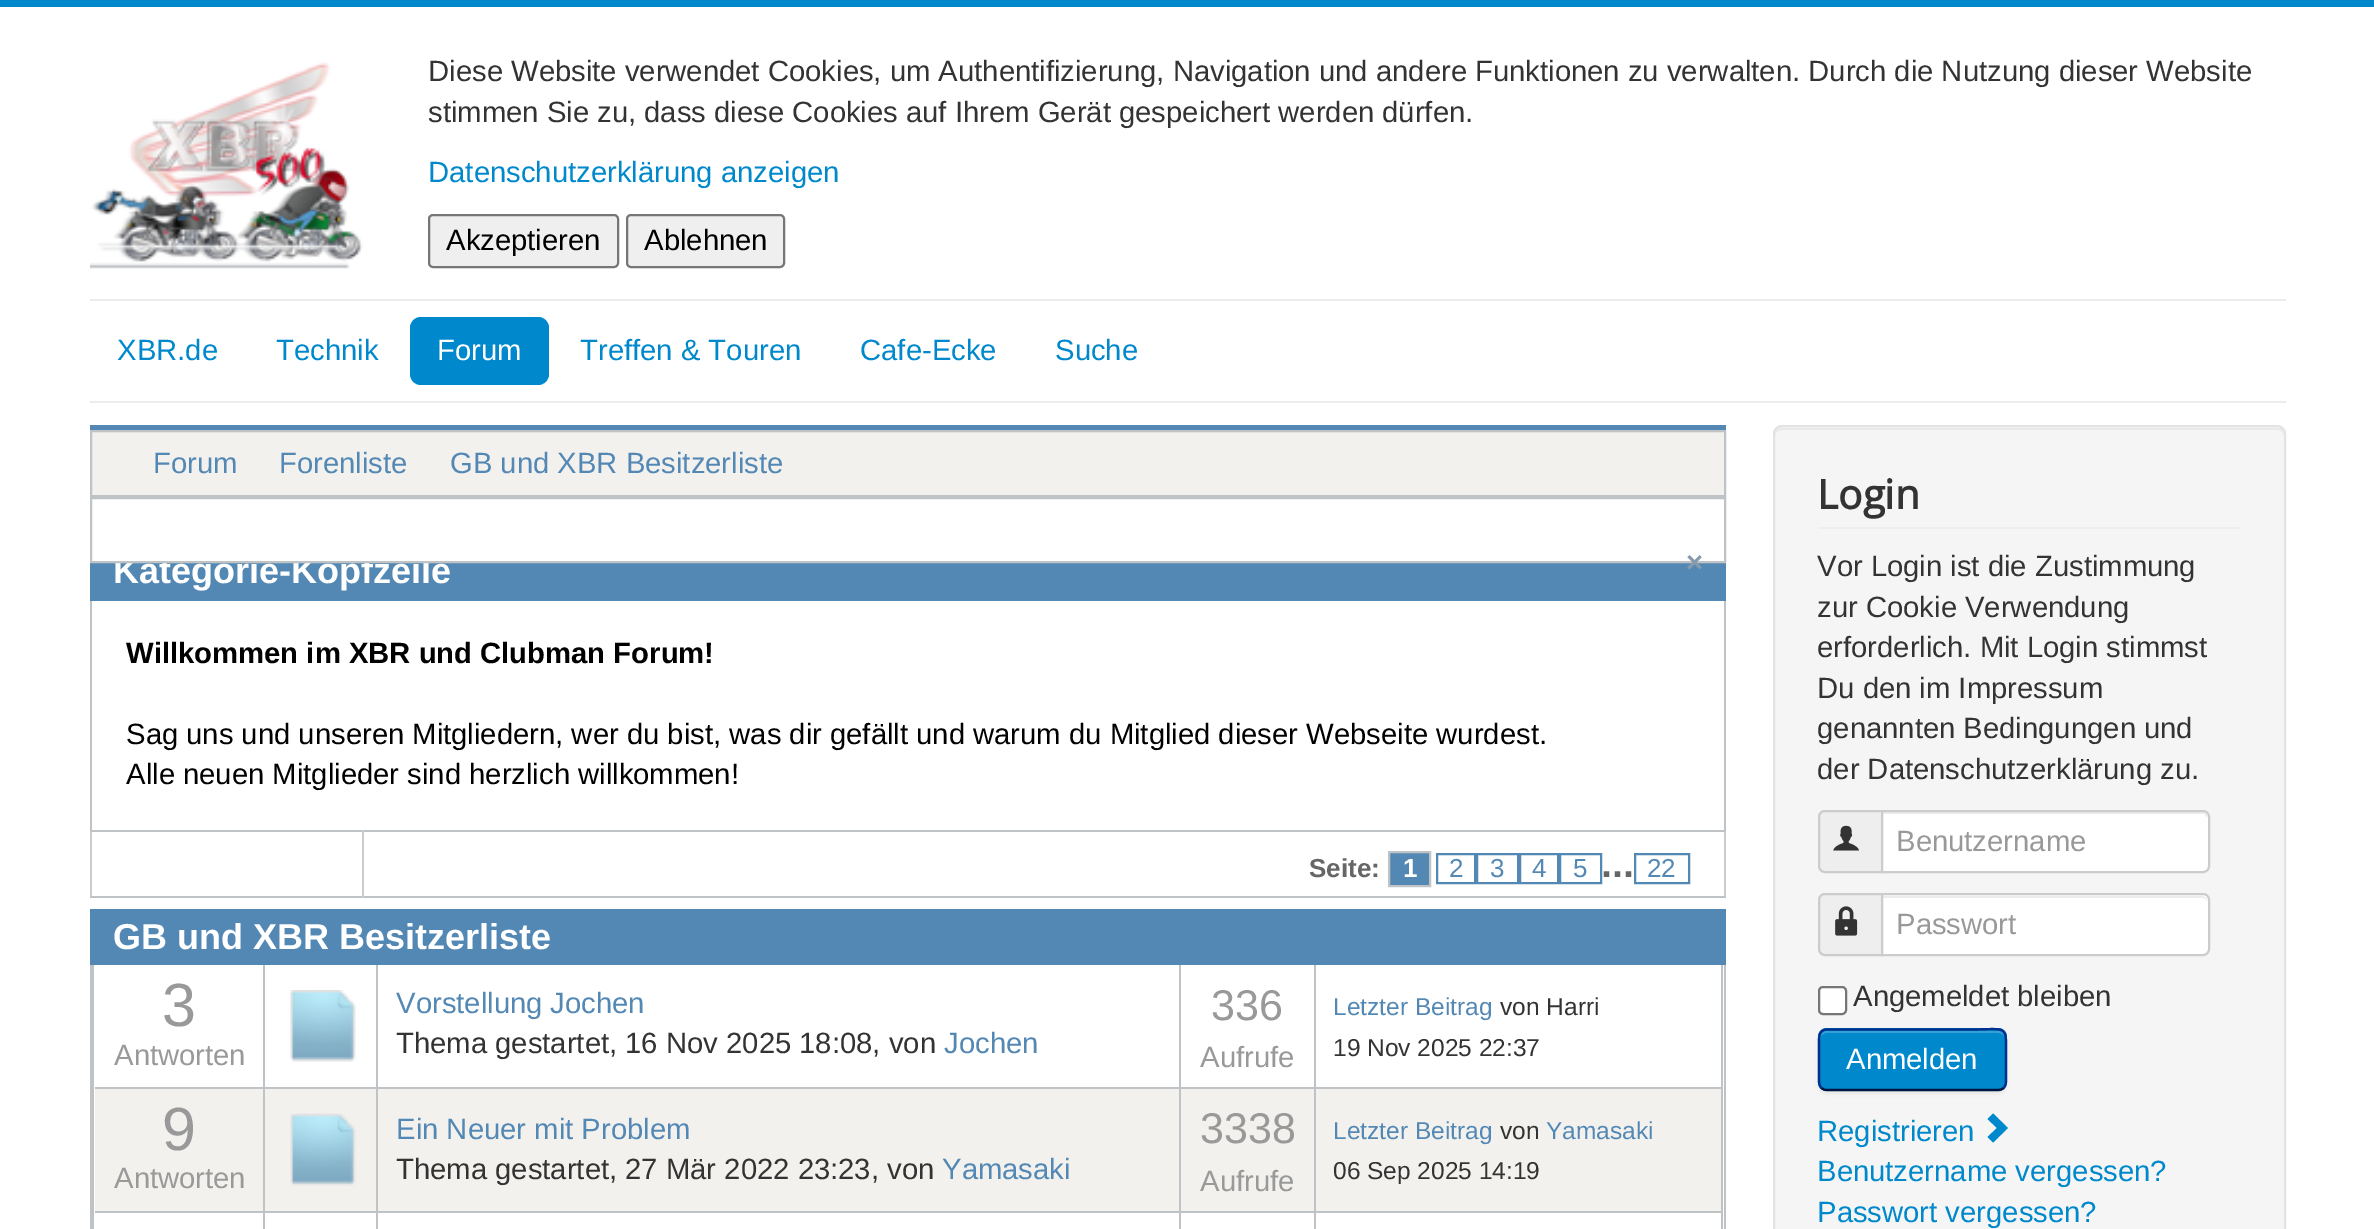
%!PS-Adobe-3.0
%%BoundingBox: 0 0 2374 1229
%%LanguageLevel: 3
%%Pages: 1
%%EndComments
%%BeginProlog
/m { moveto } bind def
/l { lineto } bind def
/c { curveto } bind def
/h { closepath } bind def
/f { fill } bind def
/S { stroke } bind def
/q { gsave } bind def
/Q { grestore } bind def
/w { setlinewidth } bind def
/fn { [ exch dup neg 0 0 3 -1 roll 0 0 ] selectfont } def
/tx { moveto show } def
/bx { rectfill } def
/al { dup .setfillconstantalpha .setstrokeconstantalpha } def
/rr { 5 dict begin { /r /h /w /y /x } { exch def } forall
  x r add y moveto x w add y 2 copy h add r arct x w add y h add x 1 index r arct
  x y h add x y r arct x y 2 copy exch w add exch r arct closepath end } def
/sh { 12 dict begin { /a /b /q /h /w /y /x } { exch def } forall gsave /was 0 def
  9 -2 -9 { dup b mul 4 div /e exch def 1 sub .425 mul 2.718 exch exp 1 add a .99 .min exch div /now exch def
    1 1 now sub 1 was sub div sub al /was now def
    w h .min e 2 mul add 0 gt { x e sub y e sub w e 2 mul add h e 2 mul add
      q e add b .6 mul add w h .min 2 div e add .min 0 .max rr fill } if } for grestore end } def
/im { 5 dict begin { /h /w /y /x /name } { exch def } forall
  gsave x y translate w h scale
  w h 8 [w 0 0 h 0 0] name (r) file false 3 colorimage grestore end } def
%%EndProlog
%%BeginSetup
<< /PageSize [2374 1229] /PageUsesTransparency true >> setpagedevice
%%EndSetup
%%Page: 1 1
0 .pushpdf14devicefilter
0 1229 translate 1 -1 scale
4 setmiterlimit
1 setgray
0 0 2374 1229 bx
0 0.533 0.8 setrgbcolor
0 0 2374 7 bx
(image0.raw) 90 62 273 207 im
/LiberationSans-Regular 29.25 fn
0.2 setgray
(Diese Website verwendet Cookies, um Authentifizierung, Navigation und andere Funktionen zu verwalten. Durch die Nutzung dieser Website) 428 81 tx
(stimmen Sie zu, dass diese Cookies auf Ihrem Gerät gespeichert werden dürfen.) 428 122 tx
0 0.533 0.8 setrgbcolor
(Datenschutzerklärung anzeigen) 428 182 tx
0.937 setgray
429 215 189 52 4 rr q f Q
0.463 setgray
2 w
S
0 setgray
(Akzeptieren) 446 250 tx
0.937 setgray
627 215 157 52 4 rr q f Q
0.463 setgray
S
0 setgray
(Ablehnen) 644 250 tx
0.925 setgray
90 299 2196 2 bx
90 401 2196 2 bx
0 0.533 0.8 setrgbcolor
(XBR.de) 117 360 tx
(Technik) 276 360 tx
410 317 139 68 11 rr f
1 setgray
(Forum) 437 360 tx
0 0.533 0.8 setrgbcolor
(Treffen & Touren) 580 360 tx
(Cafe-Ecke) 860 360 tx
(Suche) 1055 360 tx
0.325 0.533 0.706 setrgbcolor
90 425 1636 5 bx
0.949 0.945 0.933 setrgbcolor
91 431 m 1725 431 l 1725 496 l 91 496 l h q f Q
0.749 0.765 0.776 setrgbcolor
S
0.325 0.533 0.706 setrgbcolor
(Forum) 153 473 tx
(Forenliste) 279 473 tx
(GB und XBR Besitzerliste) 450 473 tx
90 563 1636 38 bx
/LiberationSans-Bold 36 fn
1 setgray
(Kategorie-Kopfzeile) 113 583 tx
0.749 0.765 0.776 setrgbcolor
91 498 1634 64 rectstroke
/LiberationSans-Bold 29.25 fn
0.525 0.604 0.671 setrgbcolor
(×) 1686 572 tx
0.749 0.765 0.776 setrgbcolor
1724 601 2 229 bx
90 601 2 229 bx
0 setgray
(Willkommen im XBR und Clubman Forum!) 126 663 tx
/LiberationSans-Regular 29.25 fn
(Sag uns und unseren Mitgliedern, wer du bist, was dir gefällt und warum du Mitglied dieser Webseite wurdest.) 126 744 tx
(Alle neuen Mitglieder sind herzlich willkommen!) 126 784 tx
0.8 setgray
1724 830 2 68 bx
90 830 2 68 bx
0.749 0.765 0.776 setrgbcolor
90 830 1636 2 bx
90 896 1636 2 bx
0.8 setgray
362 830 2 68 bx
/LiberationSans-Bold 26 fn
0.4 setgray
(Seite:) 1309 877 tx
0.325 0.533 0.706 setrgbcolor
1389 852 m 1430 852 l 1430 886 l 1389 886 l h q f Q
0.749 0.765 0.776 setrgbcolor
S
1 setgray
(1) 1403 877 tx
0.325 0.533 0.706 setrgbcolor
1437 854 38 29 rectstroke
/LiberationSans-Regular 26 fn
(2) 1449 877 tx
1477 854 41 29 rectstroke
(3) 1490 877 tx
1520 854 38 29 rectstroke
(4) 1532 877 tx
1560 854 41 29 rectstroke
(5) 1573 877 tx
/LiberationSans-Bold 39 fn
0.4 setgray
(...) 1601 877 tx
0.325 0.533 0.706 setrgbcolor
1635 854 54 29 rectstroke
/LiberationSans-Regular 26 fn
(22) 1647 877 tx
90 909 1636 56 bx
/LiberationSans-Bold 36 fn
1 setgray
(GB und XBR Besitzerliste) 113 949 tx
0.749 0.765 0.776 setrgbcolor
1724 965 2 264 bx
90 965 4 264 bx
1721 965 2 264 bx
1314 1211 2 18 bx
1314 1211 407 2 bx
1314 1087 2 126 bx
1314 1087 407 2 bx
1314 965 2 124 bx
1179 1211 2 18 bx
1179 1211 137 2 bx
1179 1087 2 126 bx
1179 1087 137 2 bx
1179 965 2 124 bx
376 1211 2 18 bx
376 1211 805 2 bx
376 1087 2 126 bx
376 1087 805 2 bx
376 965 2 124 bx
0.949 0.945 0.933 setrgbcolor
95 1089 281 122 bx
0.749 0.765 0.776 setrgbcolor
263 1211 2 18 bx
263 1211 115 2 bx
263 1087 2 126 bx
263 1087 115 2 bx
263 965 2 124 bx
95 1087 171 2 bx
/LiberationSans-Regular 61 fn
0.6 setgray
(3) 162 1026 tx
/LiberationSans-Regular 29.25 fn
(Antworten) 114 1065 tx
(image1.raw) 290 990 66 72 im
0.325 0.533 0.706 setrgbcolor
(Vorstellung Jochen) 396 1013 tx
0.2 setgray
(Thema gestartet, 16 Nov 2025 18:08, von) 396 1053 tx
0.325 0.533 0.706 setrgbcolor
(Jochen) 944 1053 tx
/LiberationSans-Regular 43 fn
0.6 setgray
(336) 1211 1020 tx
/LiberationSans-Regular 29.25 fn
(Aufrufe) 1200 1067 tx
/LiberationSans-Regular 24.5 fn
0.325 0.533 0.706 setrgbcolor
(Letzter Beitrag) 1333 1015 tx
0.2 setgray
(von Harri) 1500 1015 tx
(19 Nov 2025 22:37) 1333 1056 tx
0.749 0.765 0.776 setrgbcolor
95 1211 171 2 bx
/LiberationSans-Regular 61 fn
0.6 setgray
(9) 162 1150 tx
/LiberationSans-Regular 29.25 fn
(Antworten) 114 1188 tx
(image2.raw) 290 1113 66 73 im
0.949 0.945 0.933 setrgbcolor
378 1089 801 122 bx
0.325 0.533 0.706 setrgbcolor
(Ein Neuer mit Problem) 396 1139 tx
0.2 setgray
(Thema gestartet, 27 Mär 2022 23:23, von) 396 1179 tx
0.325 0.533 0.706 setrgbcolor
(Yamasaki) 942 1179 tx
0.949 0.945 0.933 setrgbcolor
1181 1089 133 122 bx
/LiberationSans-Regular 43 fn
0.6 setgray
(3338) 1200 1143 tx
/LiberationSans-Regular 29.25 fn
(Aufrufe) 1200 1191 tx
0.949 0.945 0.933 setrgbcolor
1316 1089 405 122 bx
/LiberationSans-Regular 24.5 fn
0.325 0.533 0.706 setrgbcolor
(Letzter Beitrag) 1333 1139 tx
0.2 setgray
(von) 1500 1139 tx
0.325 0.533 0.706 setrgbcolor
(Yamasaki) 1546 1139 tx
0.2 setgray
(06 Sep 2025 14:19) 1333 1179 tx
0.961 setgray
1773 425 513 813 9 rr f
0.914 setgray
1782 430 m 2277 430 l 2281 430 2284 433 2284 436 c 2284 435 l 2284 431 2281 428 2277 428 c 1782 428 l 1778 428 1775 431 1775 435 c 1775 436 l 1775 433 1778 430 1782 430 c h f
0.89 setgray
1774 426 511 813 8 rr S
0.933 setgray
1818 527 423 2 bx
/OpenSans-Bold 40.5 fn
0.2 setgray
(Login) 1817 509 tx
/LiberationSans-Regular 29.25 fn
(Vor Login ist die Zustimmung) 1817 576 tx
(zur Cookie Verwendung) 1817 617 tx
(erforderlich. Mit Login stimmst) 1817 657 tx
(Du den im Impressum) 1817 698 tx
(genannten Bedingungen und) 1817 738 tx
(der Datenschutzerklärung zu.) 1817 779 tx
0.933 setgray
1825 811 m 1882 811 l 1882 872 l 1825 872 l 1821.5 872 1819 869.5 1819 866 c 1819 817 l 1819 813.5 1821.5 811 1825 811 c h q f Q
0.8 setgray
S
(image3.raw) 1833 825 26 26 im
1 setgray
1881 810 m 2203 810 l 2207 810 2210 813 2210 817 c 2210 866 l 2210 870 2207 873 2203 873 c 1881 873 l h f
0.925 setgray
1883 814 m 2203 814 l 2205 814 2207 817 2207 819 c 2207 817 l 2207 814 2205 812 2202 812 c 1883 812 l h f
0.8 setgray
1882 811 m 2203 811 l 2206.5 811 2209 813.5 2209 817 c 2209 866 l 2209 869.5 2206.5 872 2203 872 c 1882 872 l h S
0.6 setgray
(Benutzername) 1896 851 tx
0.933 setgray
1825 894 m 1882 894 l 1882 955 l 1825 955 l 1821.5 955 1819 952.5 1819 949 c 1819 900 l 1819 896.5 1821.5 894 1825 894 c h q f Q
0.8 setgray
S
(image4.raw) 1835 906 23 30 im
1 setgray
1881 893 m 2203 893 l 2207 893 2210 896 2210 900 c 2210 949 l 2210 953 2207 956 2203 956 c 1881 956 l h f
0.925 setgray
1883 898 m 2203 898 l 2205 898 2207 900 2207 902 c 2207 899 2205 896 2202 896 c 1883 896 l h f
0.8 setgray
1882 894 m 2203 894 l 2206.5 894 2209 896.5 2209 900 c 2209 949 l 2209 952.5 2206.5 955 2203 955 c 1882 955 l h S
0.6 setgray
(Passwort) 1896 934 tx
1 setgray
1819 987 27 27 4 rr q f Q
0.463 setgray
S
0.2 setgray
(Angemeldet bleiben) 1853 1006 tx
0 setgray
1818 1031 189 63 9 2 0.05 sh
0 0.533 0.8 setrgbcolor
1818 1028 189 63 9 rr f
0.2 0.627 0.839 setrgbcolor
1827 1033 m 1998 1033 l 2002 1033 2005 1036 2005 1040 c 2005 1038 l 2005 1034 2002 1031 1998 1031 c 1827 1031 l 1823 1031 1820 1034 1820 1038 c 1820 1040 l 1820 1036 1823 1033 1827 1033 c h f
0 0.086 0.255 setrgbcolor
2.2 w
2003.5 1088 m 2002 1089.5 2000 1090 1998 1090 c 1827 1090 l 1825 1090 1823 1089.5 1821.5 1088 c S
0 0.184 0.553 setrgbcolor
1821.5 1088 m 1818 1084.5 1819 1079 1819 1075 c 1819 1045 l 1819 1038.5 1818 1029.5 1827 1029.5 c 1969.5 1029.5 l 2009.5 1029.5 2006 1023 2006 1060 c 2006 1075 l 2006 1079 2007 1084.5 2003.5 1088 c S
1 setgray
(Anmelden) 1846 1069 tx
0 0.533 0.8 setrgbcolor
(Registrieren) 1817 1141 tx
1993 1113.5 m 2008 1128 l 1993 1142.5 l 1987.5 1137 l 1997 1128 l 1987.5 1119 l h f
(Benutzername vergessen?) 1817 1181 tx
(Passwort vergessen?) 1817 1222 tx
.poppdf14devicefilter showpage
%%EOF
